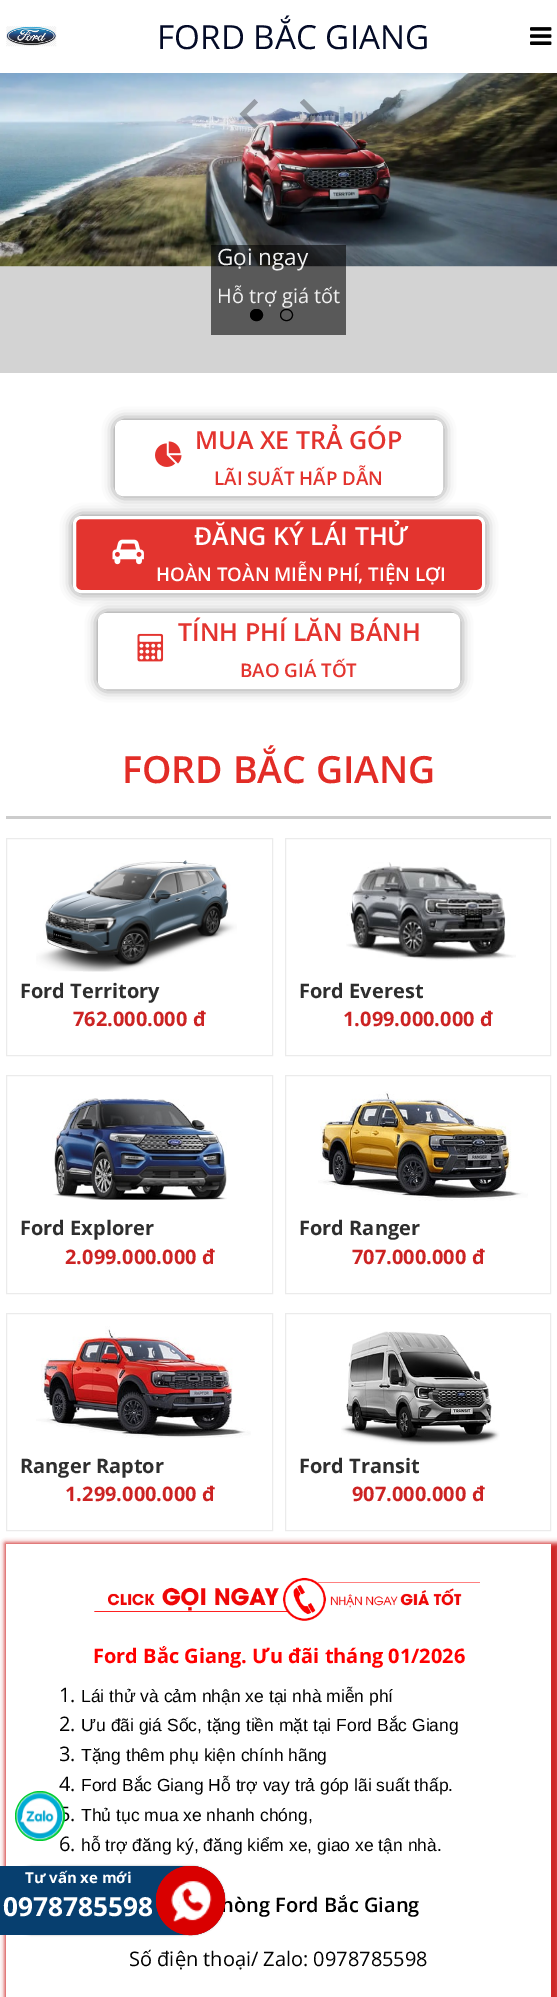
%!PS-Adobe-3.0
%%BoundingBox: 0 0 557 1997
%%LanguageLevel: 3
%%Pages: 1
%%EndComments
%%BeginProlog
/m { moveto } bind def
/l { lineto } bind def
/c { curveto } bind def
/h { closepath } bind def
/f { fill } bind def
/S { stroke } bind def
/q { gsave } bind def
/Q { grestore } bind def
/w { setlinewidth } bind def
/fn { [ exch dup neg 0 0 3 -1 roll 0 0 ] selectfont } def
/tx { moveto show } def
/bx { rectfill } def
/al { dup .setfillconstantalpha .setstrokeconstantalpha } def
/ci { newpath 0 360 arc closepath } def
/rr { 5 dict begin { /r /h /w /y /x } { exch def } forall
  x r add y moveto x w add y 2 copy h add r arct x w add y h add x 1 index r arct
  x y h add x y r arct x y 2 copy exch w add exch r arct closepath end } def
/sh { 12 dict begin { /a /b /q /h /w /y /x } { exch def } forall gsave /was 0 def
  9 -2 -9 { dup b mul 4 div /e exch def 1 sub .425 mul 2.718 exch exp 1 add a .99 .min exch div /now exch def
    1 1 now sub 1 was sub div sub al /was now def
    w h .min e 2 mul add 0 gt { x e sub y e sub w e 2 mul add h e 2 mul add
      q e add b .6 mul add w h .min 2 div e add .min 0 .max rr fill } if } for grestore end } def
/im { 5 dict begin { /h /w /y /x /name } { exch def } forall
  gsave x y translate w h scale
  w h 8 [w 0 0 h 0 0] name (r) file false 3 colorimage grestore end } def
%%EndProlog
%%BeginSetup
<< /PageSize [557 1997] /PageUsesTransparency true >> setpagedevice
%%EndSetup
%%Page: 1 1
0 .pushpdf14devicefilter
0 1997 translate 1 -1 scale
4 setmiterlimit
1 setgray
0 0 557 1997 bx
(image0.raw) 6 26 51 21 im
/OpenSans-Regular 33.25 fn
0.016 0.043 0.153 setrgbcolor
(FORD BẮC GIANG) 157 49 tx
(image1.raw) 530 27 22 18 im
0.827 setgray
0 266 557 107 bx
(image2.raw) 0 73 557 194 im
0.3 al
0 setgray
254.5 99 m 258 102.5 l 246.5 114 l 258 125 l 254.5 129 l 239.5 114 l h f
300 102.5 m 304 99 l 319 114 l 304 129 l 300 125 l 311 114 l h f
0.58 al
211 245 135 90 bx
1 al
250.5 309.5 12 11 5.5 rr q f Q
S
280.5 309.5 12 11 5.5 rr S
/OpenSans-Regular 22.5 fn
0.945 setgray
(Gọi ngay) 217 265 tx
/OpenSans-Regular 20 fn
(Hỗ trợ giá tốt) 217 303 tx
q
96 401 m 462 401 l 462 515 l 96 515 l h 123 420 m 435 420 l 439.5 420 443 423.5 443 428 c 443 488 l 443 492.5 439.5 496 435 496 c 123 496 l 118.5 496 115 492.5 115 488 c 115 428 l 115 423.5 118.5 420 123 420 c h eoclip newpath
0 setgray
115 420 328 76 8 6 0.5 sh
Q
1 setgray
3 w
116.5 421.5 325 73 6.5 rr S
(image3.raw) 155 441 27 26 im
/OpenSans-SemiBold 25 fn
0.89 0.204 0.184 setrgbcolor
(MUA XE TRẢ GÓP) 195 449 tx
/OpenSans-SemiBold 18.75 fn
(LÃI SUẤT HẤP DẪN) 214 485 tx
0 setgray
73 516 412 77 8 6 0.5 sh
0.89 0.204 0.184 setrgbcolor
74.5 517.5 409 74 6.5 rr q f Q
1 setgray
S
(image4.raw) 112 539 32 26 im
/OpenSans-SemiBold 25 fn
(ĐĂNG KÝ LÁI THỬ) 194 545 tx
/OpenSans-SemiBold 18.75 fn
(HOÀN TOÀN MIỄN PHÍ, TIỆN LỢI) 156 581 tx
q
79 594 m 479 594 l 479 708 l 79 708 l h 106 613 m 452 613 l 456.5 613 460 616.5 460 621 c 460 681 l 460 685.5 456.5 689 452 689 c 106 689 l 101.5 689 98 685.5 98 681 c 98 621 l 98 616.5 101.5 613 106 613 c h eoclip newpath
0 setgray
98 613 362 76 8 6 0.5 sh
Q
99.5 614.5 359 73 6.5 rr S
(image5.raw) 137 633 27 29 im
/OpenSans-SemiBold 25 fn
0.89 0.204 0.184 setrgbcolor
(TÍNH PHÍ LĂN BÁNH) 178 641 tx
/OpenSans-SemiBold 18.75 fn
(BAO GIÁ TỐT) 240 677 tx
0.8 setgray
6 816 545 3 bx
/OpenSans-SemiBold 37.5 fn
0.886 0.173 0.149 setrgbcolor
(FORD BẮC GIANG) 122 783 tx
0.922 setgray
1 w
6.5 838.5 266 217 rectstroke
(image6.raw) 36 860 201 112 im
(image7.raw) 83 971 30 1 im
/OpenSans-Bold 20 fn
0.18 setgray
(Ford Territory) 20 998 tx
0.8 0.137 0.137 setrgbcolor
(762.000.000 đ) 73 1026 tx
0.922 setgray
285.5 838.5 265 217 rectstroke
(image8.raw) 346 862 170 99 im
0.18 setgray
(Ford Everest) 299 998 tx
0.8 0.137 0.137 setrgbcolor
(1.099.000.000 đ) 343 1026 tx
0.922 setgray
6.5 1075.5 266 218 rectstroke
(image9.raw) 52 1098 175 102 im
0.18 setgray
(Ford Explorer) 20 1235 tx
0.8 0.137 0.137 setrgbcolor
(2.099.000.000 đ) 65 1264 tx
0.922 setgray
285.5 1075.5 265 218 rectstroke
(image10.raw) 318 1091 210 110 im
0.18 setgray
(Ford Ranger) 299 1235 tx
0.8 0.137 0.137 setrgbcolor
(707.000.000 đ) 352 1264 tx
0.922 setgray
6.5 1313.5 266 217 rectstroke
(image11.raw) 36 1326 215 112 im
0.18 setgray
(Ranger Raptor) 20 1473 tx
0.8 0.137 0.137 setrgbcolor
(1.299.000.000 đ) 65 1501 tx
0.922 setgray
285.5 1313.5 265 217 rectstroke
(image12.raw) 341 1331 159 115 im
0.18 setgray
(Ford Transit) 299 1473 tx
0.8 0.137 0.137 setrgbcolor
(907.000.000 đ) 352 1501 tx
q
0 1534 m 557 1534 l 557 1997 l 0 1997 l h 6 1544 m 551 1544 l 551 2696 l 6 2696 l h eoclip newpath
5 1543 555 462 0 2.5 1 sh
Q
(image13.raw) 94 1577 386 44 im
1 0 0 setrgbcolor
(Ford Bắc Giang. Ưu đãi tháng 01/2026) 93 1663 tx
/OpenSans-Regular 20 fn
0 setgray
(1.) 59 1702 tx
/LiberationSans-Regular 17.5 fn
(Lái thử và cảm nhận xe tại nhà miễn phí) 81 1702 tx
/OpenSans-Regular 20 fn
(2.) 59 1731 tx
/LiberationSans-Regular 17.5 fn
(Ưu đãi giá Sốc, tặng tiền mặt tại Ford Bắc Giang) 81 1731 tx
/OpenSans-Regular 20 fn
(3.) 59 1761 tx
/LiberationSans-Regular 17.5 fn
(Tặng thêm phụ kiện chính hãng) 81 1761 tx
/OpenSans-Regular 20 fn
(4.) 59 1791 tx
/LiberationSans-Regular 17.5 fn
(Ford Bắc Giang Hỗ trợ vay trả góp lãi suất thấp.) 81 1791 tx
/OpenSans-Regular 20 fn
(5.) 59 1821 tx
/LiberationSans-Regular 17.5 fn
(Thủ tục mua xe nhanh chóng,) 81 1821 tx
/OpenSans-Regular 20 fn
(6.) 59 1851 tx
/LiberationSans-Regular 17.5 fn
(hỗ trợ đăng ký, đăng kiểm xe, giao xe tận nhà.) 81 1851 tx
/OpenSans-SemiBold 20 fn
(hòng Ford Bắc Giang) 221 1912 tx
/OpenSans-Regular 20 fn
(Số điện thoại/ Zalo: 0978785598) 129 1966 tx
0 0.8 0.2 setrgbcolor
40 1816 25 ci f
(image14.raw) 16 1792 48 48 im
0 setgray
0 1866 225 69 34.5 1 0.3 sh
0.027 0.247 0.435 setrgbcolor
0 1866 m 190.5 1866 l 209.5 1866 225 1881.5 225 1900.5 c 225 1919.5 209.5 1935 190.5 1935 c 0 1935 l h f
/OpenSans-Bold 15 fn
1 setgray
(Tư vấn xe mới) 25 1883 tx
/OpenSans-Bold 26.25 fn
(0978785598) 3 1916 tx
0.851 0 0 setrgbcolor
190.5 1900.5 34.5 ci f
(image15.raw) 171 1881 41 41 im
5 w
190.5 1900.5 32 ci S
.poppdf14devicefilter showpage
%%EOF
